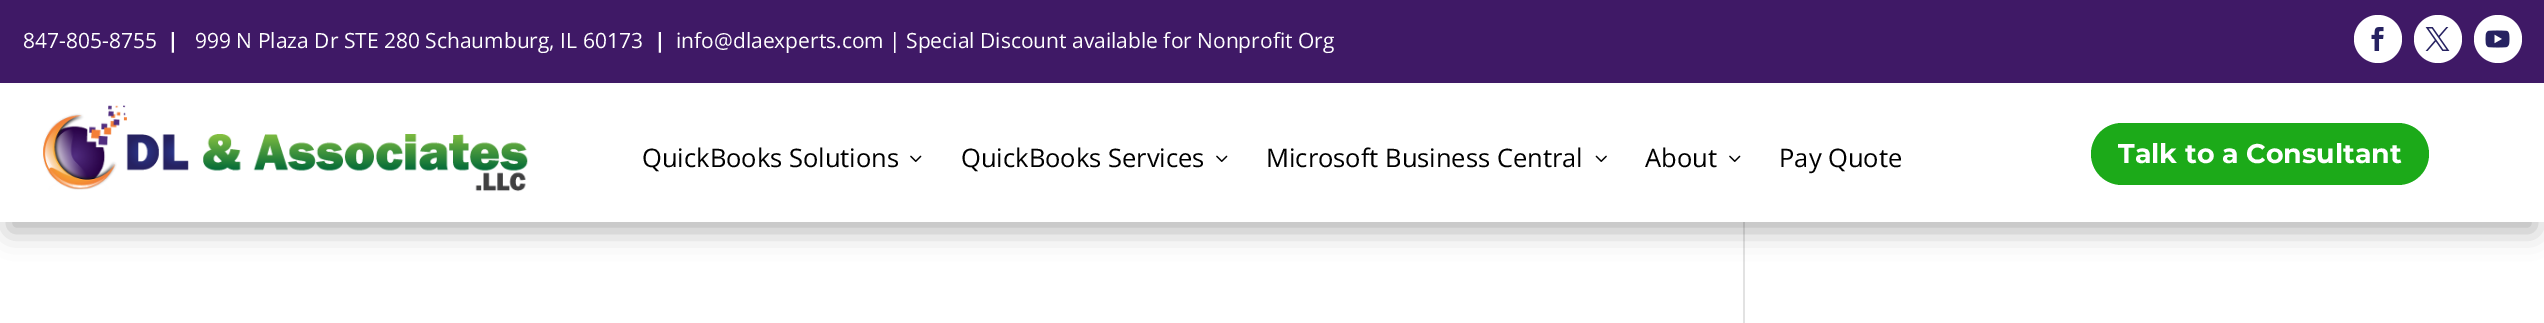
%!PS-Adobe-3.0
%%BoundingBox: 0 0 2544 323
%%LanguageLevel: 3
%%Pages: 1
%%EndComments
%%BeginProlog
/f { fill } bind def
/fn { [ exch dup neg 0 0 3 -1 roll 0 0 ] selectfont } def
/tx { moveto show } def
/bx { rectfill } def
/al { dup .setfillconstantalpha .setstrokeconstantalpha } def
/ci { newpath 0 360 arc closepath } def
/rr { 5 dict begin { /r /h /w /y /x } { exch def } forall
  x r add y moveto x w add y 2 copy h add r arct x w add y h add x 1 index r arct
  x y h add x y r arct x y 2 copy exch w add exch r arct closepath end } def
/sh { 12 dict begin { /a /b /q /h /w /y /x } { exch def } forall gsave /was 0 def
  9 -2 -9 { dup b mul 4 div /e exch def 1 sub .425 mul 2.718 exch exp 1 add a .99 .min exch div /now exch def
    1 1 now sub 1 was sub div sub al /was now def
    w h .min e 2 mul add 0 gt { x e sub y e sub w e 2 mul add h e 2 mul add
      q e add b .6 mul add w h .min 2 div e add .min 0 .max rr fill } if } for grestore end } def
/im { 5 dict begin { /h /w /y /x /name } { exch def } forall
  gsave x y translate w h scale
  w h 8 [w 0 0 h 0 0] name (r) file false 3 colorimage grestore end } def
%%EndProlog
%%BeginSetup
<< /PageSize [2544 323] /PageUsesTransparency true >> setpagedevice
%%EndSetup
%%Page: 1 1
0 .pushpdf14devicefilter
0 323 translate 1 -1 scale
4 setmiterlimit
1 setgray
0 0 2544 323 bx
0.247 0.098 0.4 setrgbcolor
0 0 2544 83 bx
/OpenSans-Regular 21 fn
1 setgray
(847-805-8755) 23 48 tx
/OpenSans-Bold 21 fn
(|) 167 48 tx
/OpenSans-Regular 21 fn
(999 N Plaza Dr STE 280 Schaumburg, IL 60173) 195 48 tx
/OpenSans-Bold 21 fn
(|) 654 48 tx
/OpenSans-Regular 21 fn
(info@dlaexperts.com | Special Discount available for Nonprofit Org) 676 48 tx
2378 39 24 ci f
(image0.raw) 2371 27 13 24 im
2438 39 24 ci f
(image1.raw) 2425 27 25 24 im
2498 39 24 ci f
(image2.raw) 2485 30 25 18 im
0.886 setgray
1743 222 2 101 bx
0 setgray
9 110 2526 121 0 13.5 0.3 sh
1 setgray
0 85 2544 137 bx
(image3.raw) 43 105 485 87 im
/OpenSans-Regular 25.5 fn
0 setgray
(QuickBooks Solutions) 642 167 tx
(image4.raw) 910 155 12 7 im
(QuickBooks Services) 961 167 tx
(image4.raw) 1216 155 12 7 im
(Microsoft Business Central) 1266 167 tx
(image5.raw) 1595 155 12 7 im
(About) 1645 167 tx
(image4.raw) 1729 155 12 7 im
(Pay Quote) 1779 167 tx
0.11 0.667 0.098 setrgbcolor
2091 123 338 62 31 rr f
/Montserrat-Thin 27 fn
1 setgray
(Talk to a Consultant) 2118 163 tx
.poppdf14devicefilter showpage
%%EOF
